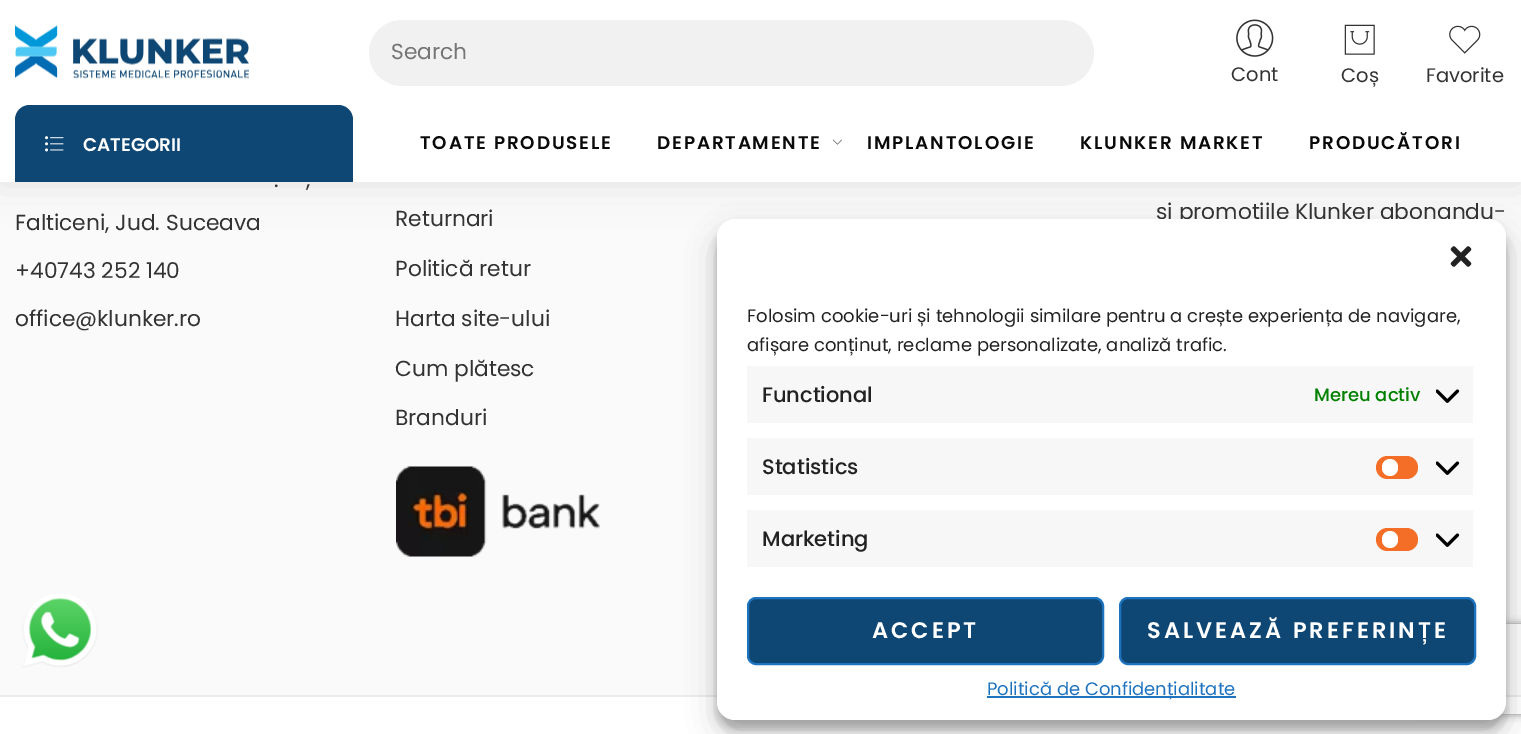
%!PS-Adobe-3.0
%%BoundingBox: 0 0 1521 734
%%LanguageLevel: 3
%%Pages: 1
%%EndComments
%%BeginProlog
/m { moveto } bind def
/l { lineto } bind def
/c { curveto } bind def
/h { closepath } bind def
/f { fill } bind def
/S { stroke } bind def
/q { gsave } bind def
/Q { grestore } bind def
/w { setlinewidth } bind def
/fn { [ exch dup neg 0 0 3 -1 roll 0 0 ] selectfont } def
/tx { moveto show } def
/bx { rectfill } def
/al { dup .setfillconstantalpha .setstrokeconstantalpha } def
/rr { 5 dict begin { /r /h /w /y /x } { exch def } forall
  x r add y moveto x w add y 2 copy h add r arct x w add y h add x 1 index r arct
  x y h add x y r arct x y 2 copy exch w add exch r arct closepath end } def
/sh { 12 dict begin { /a /b /q /h /w /y /x } { exch def } forall gsave /was 0 def
  9 -2 -9 { dup b mul 4 div /e exch def 1 sub .425 mul 2.718 exch exp 1 add a .99 .min exch div /now exch def
    1 1 now sub 1 was sub div sub al /was now def
    w h .min e 2 mul add 0 gt { x e sub y e sub w e 2 mul add h e 2 mul add
      q e add b .6 mul add w h .min 2 div e add .min 0 .max rr fill } if } for grestore end } def
/im { 5 dict begin { /h /w /y /x /name } { exch def } forall
  gsave x y translate w h scale
  w h 8 [w 0 0 h 0 0] name (r) file false 3 colorimage grestore end } def
%%EndProlog
%%BeginSetup
<< /PageSize [1521 734] /PageUsesTransparency true >> setpagedevice
%%EndSetup
%%Page: 1 1
0 .pushpdf14devicefilter
0 734 translate 1 -1 scale
4 setmiterlimit
1 setgray
0 0 1521 734 bx
0.98 setgray
0 182 1521 513 bx
0 setgray
0 2 1521 181 0 19 0.1 sh
1 setgray
0 0 1521 182 bx
(image0.raw) 15 25 234 54 im
0.945 setgray
369 20 725 66 33 rr f
/Poppins-Regular 21.75 fn
0.459 setgray
(Search) 391 59 tx
(image1.raw) 1236 19 38 38 im
/Poppins-Regular 19.5 fn
0.2 setgray
(Cont) 1231 81 tx
(image2.raw) 1344 24 31 31 im
(Coș) 1341 82 tx
(image3.raw) 1449 25 32 29 im
(Favorite) 1426 82 tx
0.055 0.278 0.455 setrgbcolor
30 105 m 338 105 l 346.5 105 353 111.5 353 120 c 353 182 l 15 182 l 15 120 l 15 111.5 21.5 105 30 105 c h f
(image4.raw) 45 136 19 16 im
/Poppins-SemiBold 18.4 fn
1 setgray
(CATEGORII) 83 151 tx
0.039 setgray
420 149 m 1.8 0 (TOATE PRODUSELE) ashow
657 149 m 1.8 0 (DEPARTAMENTE) ashow
(image5.raw) 832 139 10 6 im
867 149 m 1.8 0 (IMPLANTOLOGIE) ashow
1080 149 m 1.8 0 (KLUNKER MARKET) ashow
1309 149 m 1.8 0 (PRODUCĂTORI) ashow
/Poppins-Regular 21.75 fn
0.2 setgray
(.) 274 187 tx
(,) 306 187 tx
(Falticeni, Jud. Suceava) 15 230 tx
(+40743 252 140) 15 278 tx
(office@klunker.ro) 15 326 tx
(Returnari) 395 226 tx
(Politică retur) 395 276 tx
(Harta site-ului) 395 326 tx
(Cum plătesc) 395 376 tx
(Branduri) 395 425 tx
(image6.raw) 396 466 204 91 im
(si promotiile Klunker abonandu-) 1156 219 tx
0.925 setgray
0 695 1521 2 bx
(image7.raw) 22 593 76 75 im
0 setgray
717 228 789 501 18 4.5 0.23 sh
717 234 789 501 18 15 0.19 sh
q
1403 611 m 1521 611 l 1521 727 l 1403 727 l h 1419 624 m 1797 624 l 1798.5 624 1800 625.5 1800 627 c 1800 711 l 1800 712.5 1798.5 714 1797 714 c 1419 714 l 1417.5 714 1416 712.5 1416 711 c 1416 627 l 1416 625.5 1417.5 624 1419 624 c h eoclip newpath
0.502 setgray
1416 624 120 90 3 4 1 sh
Q
1 setgray
717 219 789 501 18 rr f
(image8.raw) 1450 246 22 21 im
/Poppins-Regular 18 fn
0.133 setgray
(Folosim cookie-uri și tehnologii similare pentru a crește experiența de navigare,) 747 322 tx
(afișare conținut, reclame personalizate, analiză trafic.) 747 351 tx
0.969 setgray
747 366 726 57 bx
/Poppins-Medium 21 fn
0.133 setgray
(Functional) 762 402 tx
/Poppins-Medium 18 fn
0 0.502 0 setrgbcolor
(Mereu activ) 1314 401 tx
(image9.raw) 1436 389 24 14 im
0.969 setgray
747 438 726 57 bx
/Poppins-Medium 21 fn
0.133 setgray
(Statistics) 762 474 tx
0.961 0.431 0.157 setrgbcolor
1376 456 42 23 11.5 rr f
1 setgray
1382 459 16 17 8 rr f
(image9.raw) 1436 461 24 14 im
0.969 setgray
747 510 726 57 bx
0.133 setgray
(Marketing) 762 546 tx
0.961 0.431 0.157 setrgbcolor
1376 528 42 23 11.5 rr f
1 setgray
1382 531 16 17 8 rr f
(image9.raw) 1436 533 24 14 im
0.055 0.278 0.455 setrgbcolor
748 598 355 66 8 rr q f Q
0.118 0.451 0.745 setrgbcolor
2 w
S
/Poppins-SemiBold 22.5 fn
1 setgray
872 638 m 3 0 (ACCEPT) ashow
0.055 0.278 0.455 setrgbcolor
1120 598 355 66 8 rr q f Q
0.118 0.451 0.745 setrgbcolor
S
1 setgray
1147 638 m 3 0 (SALVEAZĂ PREFERINȚE) ashow
0.118 0.451 0.745 setrgbcolor
987 696 249 2 bx
/Poppins-Regular 18 fn
(Politică de Confidențialitate) 987 695 tx
.poppdf14devicefilter showpage
%%EOF
